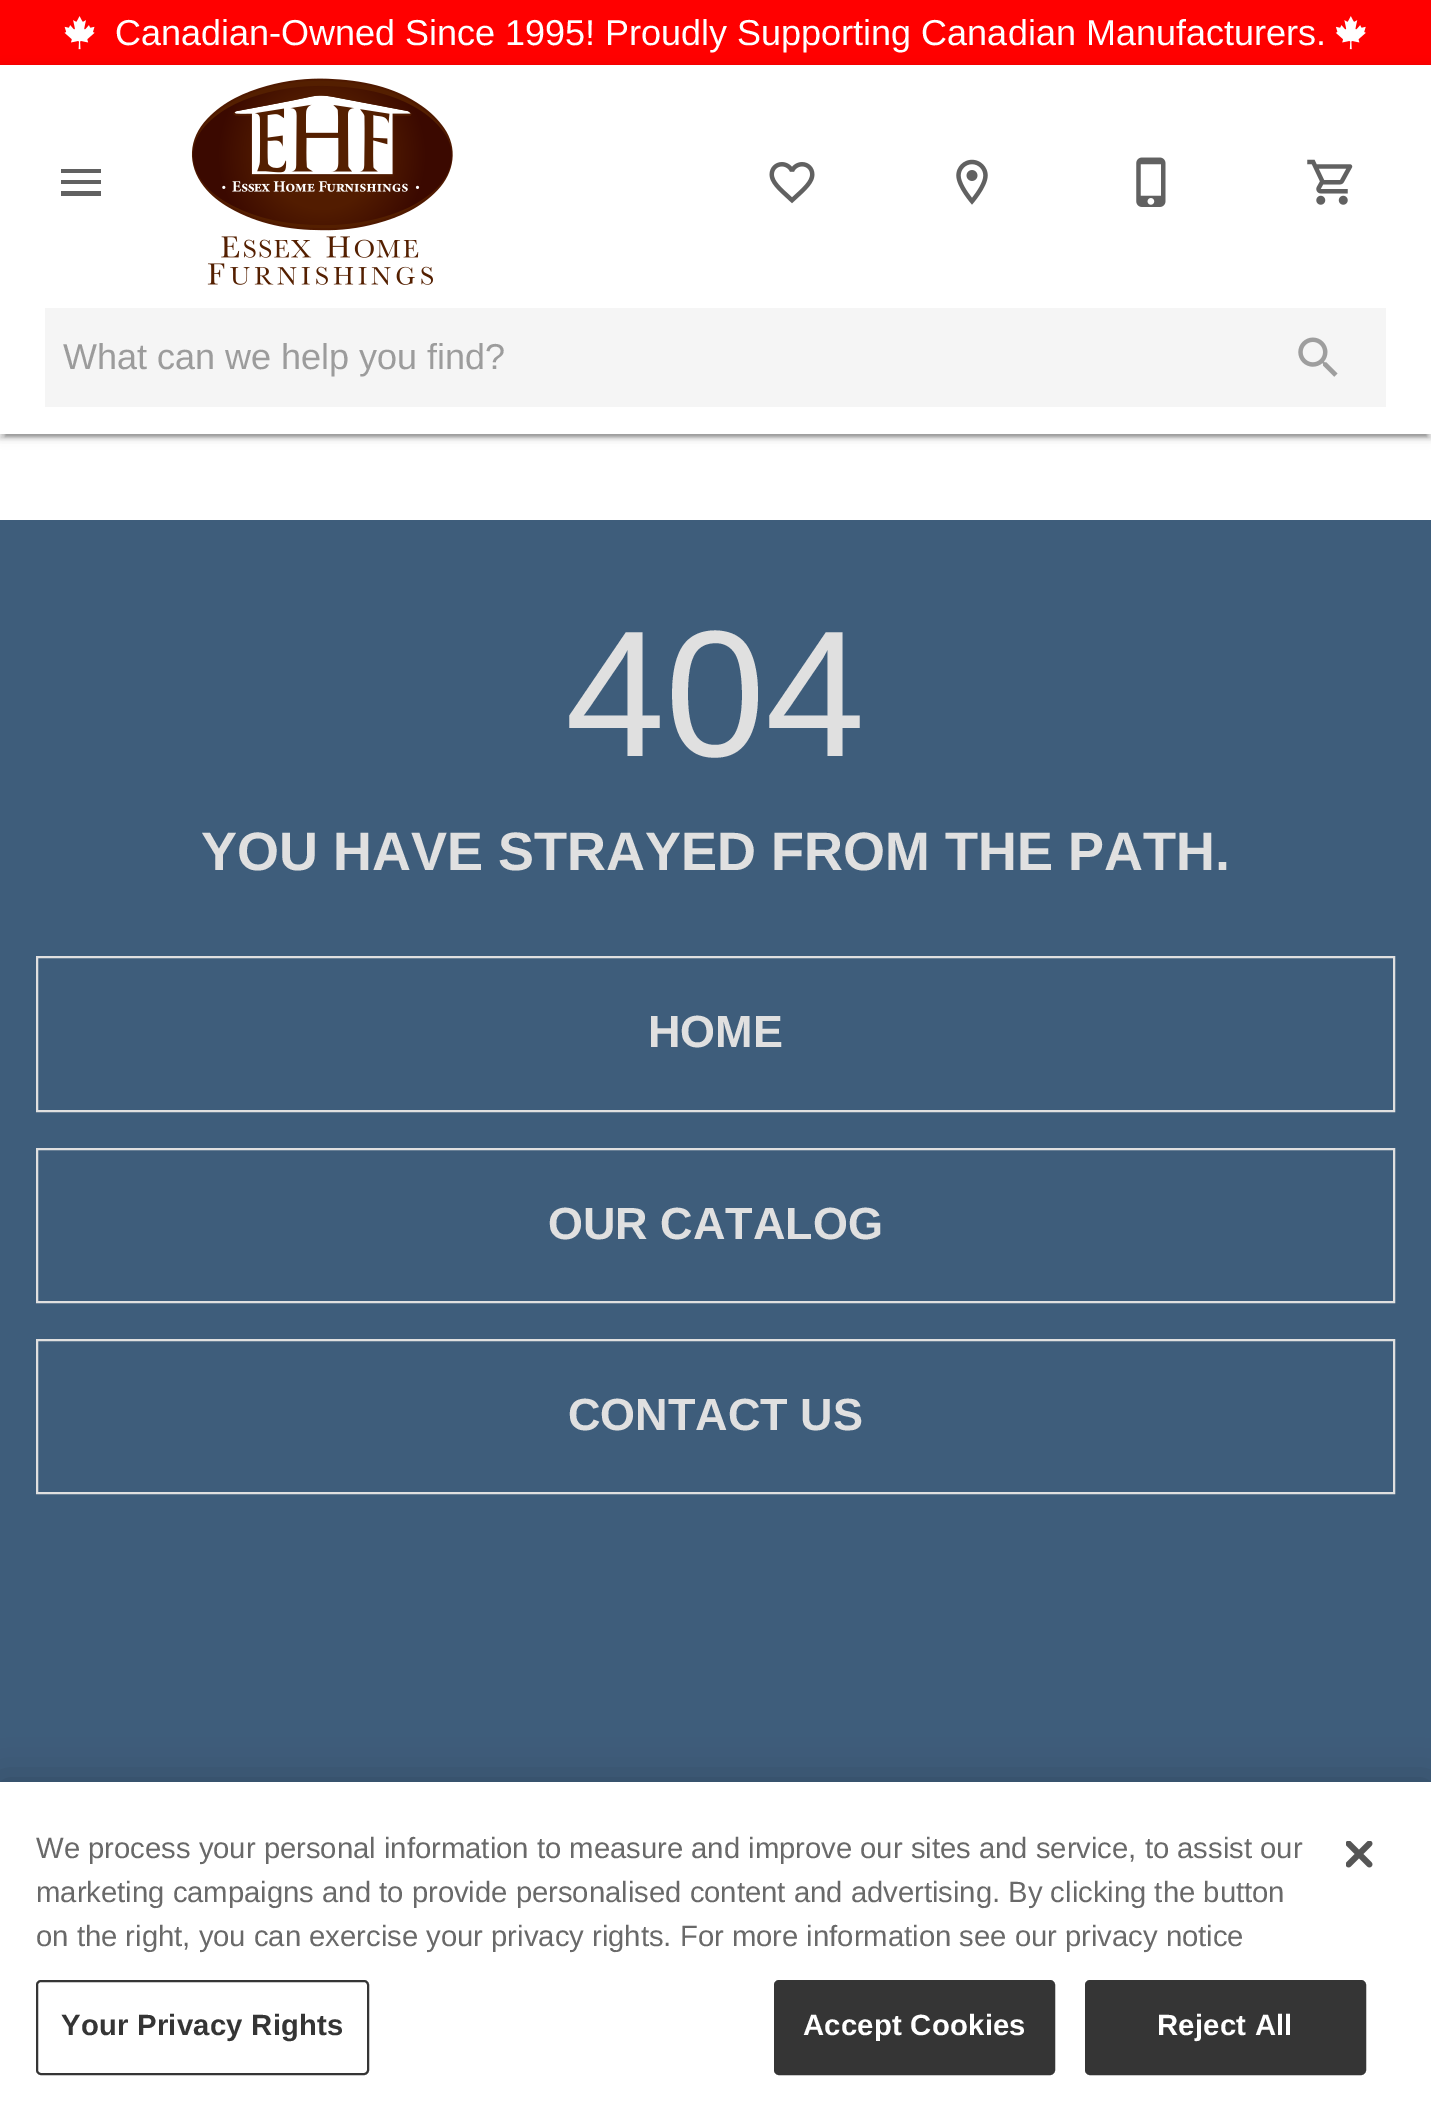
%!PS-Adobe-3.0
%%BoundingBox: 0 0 1431 2120
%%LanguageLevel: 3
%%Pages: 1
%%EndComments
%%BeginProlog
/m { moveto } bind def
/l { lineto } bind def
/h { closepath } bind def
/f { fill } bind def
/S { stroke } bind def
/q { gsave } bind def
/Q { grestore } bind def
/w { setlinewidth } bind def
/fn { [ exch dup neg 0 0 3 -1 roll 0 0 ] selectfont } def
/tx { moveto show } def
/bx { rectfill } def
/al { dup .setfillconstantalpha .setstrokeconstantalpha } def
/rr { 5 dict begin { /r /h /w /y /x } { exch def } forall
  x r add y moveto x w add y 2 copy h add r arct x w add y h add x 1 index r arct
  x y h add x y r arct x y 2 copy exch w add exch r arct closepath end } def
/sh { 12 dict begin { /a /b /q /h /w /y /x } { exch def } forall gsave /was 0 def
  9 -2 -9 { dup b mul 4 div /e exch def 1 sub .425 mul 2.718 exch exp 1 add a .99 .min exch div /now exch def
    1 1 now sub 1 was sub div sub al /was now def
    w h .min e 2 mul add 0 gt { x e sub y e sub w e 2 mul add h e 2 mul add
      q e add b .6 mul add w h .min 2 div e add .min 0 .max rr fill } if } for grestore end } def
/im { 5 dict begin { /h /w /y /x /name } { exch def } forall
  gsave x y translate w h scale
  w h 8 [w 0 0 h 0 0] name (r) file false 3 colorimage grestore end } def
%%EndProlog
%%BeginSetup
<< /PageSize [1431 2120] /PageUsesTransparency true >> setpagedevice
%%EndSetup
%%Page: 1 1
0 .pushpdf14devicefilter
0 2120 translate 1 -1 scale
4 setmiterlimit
1 setgray
0 0 1431 2120 bx
1 0 0 setrgbcolor
0 0 1431 65 bx
(image0.raw) 64 16 31 34 im
/Arimo-Regular 36 fn
1 setgray
(Canadian-Owned Since 1995! Proudly Supporting Canadian Manufacturers.) 115 45 tx
(image1.raw) 1335 16 31 34 im
0 setgray
0 68 1431 369 0 5.5 0.12 sh
0 70 1431 369 0 2 0.14 sh
5 77 1422 360 0 1 0.2 sh
1 setgray
0 65 1431 369 bx
0.38 setgray
61 196 m 101 196 l 101 191 l 61 191 l h 61 184 m 101 184 l 101 180 l 61 180 l h 61 169 m 61 173 l 101 173 l 101 169 l h f
(image2.raw) 191 78 262 207 im
(image3.raw) 769 162 46 42 im
(image4.raw) 956 159 32 46 im
(image5.raw) 1136 157 30 50 im
(image6.raw) 1307 159 46 46 im
0.961 setgray
45 308 1341 99 bx
0.612 setgray
(What can we help you find?) 63 369 tx
(image7.raw) 1298 337 40 40 im
0.243 0.365 0.482 setrgbcolor
0 520 1431 1262 bx
/Arimo-Regular 180 fn
0.878 setgray
(404) 565 756 tx
/Arimo-Bold 54 fn
(YOU HAVE STRAYED FROM THE PATH.) 201 870 tx
2 w
37 957 1357 154 rectstroke
/Arimo-Bold 45 fn
(HOME) 648 1047 tx
37 1149 1357 153 rectstroke
(OUR CATALOG) 548 1239 tx
37 1340 1357 153 rectstroke
(CONTACT US) 568 1430 tx
0 setgray
0 1782 1431 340 0 20 0.2 sh
1 setgray
0 1782 1431 338 bx
/Arimo-Regular 29.25 fn
0.412 setgray
(We process your personal information to measure and improve our sites and service, to assist our) 36 1858 tx
(marketing campaigns and to provide personalised content and advertising. By clicking the button) 36 1902 tx
(on the right, you can exercise your privacy rights. For more information see our privacy notice) 36 1946 tx
0.208 setgray
37 1981 331 93 4 rr S
/Arimo-Bold 29.25 fn
61 2035 m 0.25 0 (Your Privacy Rights) ashow
775 1981 279 93 4 rr q f Q
S
1 setgray
803 2035 m 0.25 0 (Accept Cookies) ashow
0.208 setgray
1086 1981 279 93 4 rr q f Q
S
1 setgray
1157 2035 m 0.25 0 (Reject All) ashow
(image8.raw) 1346 1841 27 27 im
.poppdf14devicefilter showpage
%%EOF
